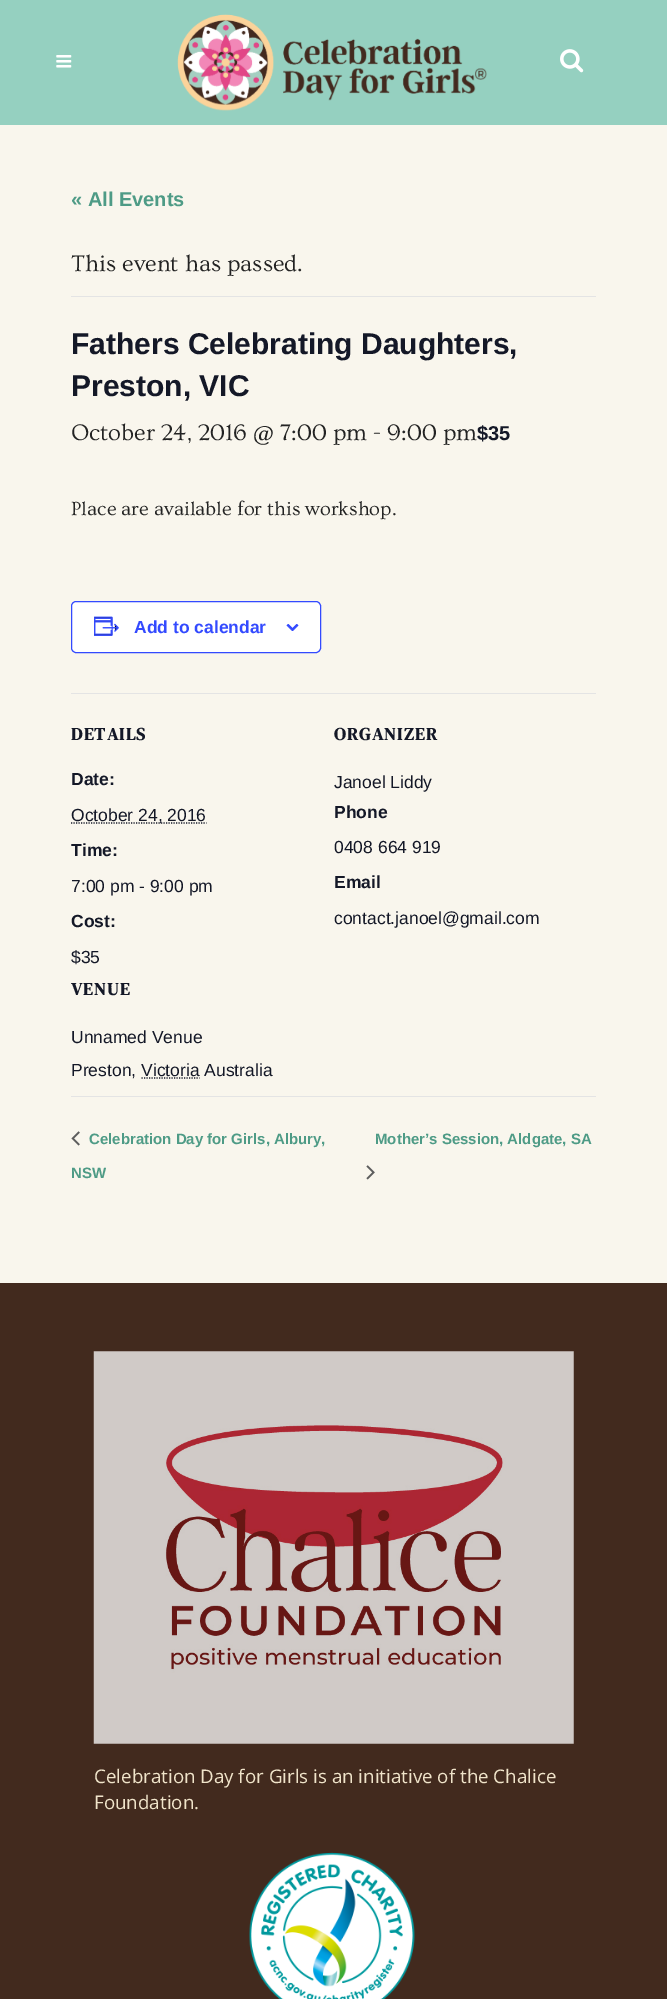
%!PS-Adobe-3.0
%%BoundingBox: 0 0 667 1999
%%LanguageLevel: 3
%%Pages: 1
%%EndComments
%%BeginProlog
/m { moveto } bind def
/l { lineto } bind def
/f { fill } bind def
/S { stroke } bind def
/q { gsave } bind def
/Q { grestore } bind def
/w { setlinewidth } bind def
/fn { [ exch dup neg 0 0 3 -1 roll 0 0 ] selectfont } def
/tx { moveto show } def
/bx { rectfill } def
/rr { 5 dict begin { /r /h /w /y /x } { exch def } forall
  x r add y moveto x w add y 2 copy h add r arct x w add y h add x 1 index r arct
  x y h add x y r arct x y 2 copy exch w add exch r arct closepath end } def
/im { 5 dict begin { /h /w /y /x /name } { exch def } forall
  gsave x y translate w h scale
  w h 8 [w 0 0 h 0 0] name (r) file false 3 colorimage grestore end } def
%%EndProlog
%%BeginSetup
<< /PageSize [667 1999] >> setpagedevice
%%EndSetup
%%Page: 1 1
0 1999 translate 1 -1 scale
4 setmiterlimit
0.976 0.965 0.929 setrgbcolor
0 0 667 1999 bx
0.584 0.816 0.753 setrgbcolor
0 0 667 125 bx
(image0.raw) 56 55 16 13 im
(image1.raw) 177 14 310 97 im
(image2.raw) 560 49 24 24 im
/LiberationSans-Bold 20 fn
0.306 0.608 0.525 setrgbcolor
(« All Events) 71 206 tx
0.894 setgray
71 296 525 1 bx
/Ovo-Regular 23.75 fn
0.137 setgray
(This event has passed.) 71 271 tx
/LiberationSans-Bold 30 fn
0.078 0.094 0.153 setrgbcolor
(Fathers Celebrating Daughters,) 71 354 tx
(Preston, VIC) 71 396 tx
/Ovo-Regular 23.75 fn
0.137 setgray
(October 24, 2016 @ 7:00 pm - 9:00 pm) 71 440 tx
/LiberationSans-Bold 20 fn
0.078 0.094 0.153 setrgbcolor
($35) 477 440 tx
/Ovo-Regular 20 fn
0.137 setgray
(Place are available for this workshop.) 71 515 tx
1 setgray
71.5 601.5 249 51 4.5 rr q f Q
0.2 0.29 1 setrgbcolor
S
(image3.raw) 94 616 25 20 im
/LiberationSans-Bold 17.5 fn
(Add to calendar) 134 633 tx
(image4.raw) 286 624 13 7 im
0.894 setgray
71 693 525 1 bx
/DMSerifText-Bold 17.5 fn
0.078 0.094 0.153 setrgbcolor
71 740 m 1.25 0 (DETAILS) ashow
/LiberationSans-Bold 17.5 fn
(Date:) 71 785 tx
1.2 w
[1.25 1.25] 0 setdash
71 823 m 206.5 823 l S
/LiberationSans-Regular 17.5 fn
(October 24, 2016) 71 821 tx
/LiberationSans-Bold 17.5 fn
(Time:) 71 856 tx
/LiberationSans-Regular 17.5 fn
(7:00 pm - 9:00 pm) 71 892 tx
/LiberationSans-Bold 17.5 fn
(Cost:) 71 927 tx
/LiberationSans-Regular 17.5 fn
($35) 71 963 tx
/DMSerifText-Bold 17.5 fn
334 740 m 1.25 0 (ORGANIZER) ashow
/LiberationSans-Regular 17.5 fn
(Janoel Liddy) 334 788 tx
/LiberationSans-Bold 17.5 fn
(Phone) 334 818 tx
/LiberationSans-Regular 17.5 fn
(0408 664 919) 334 853 tx
/LiberationSans-Bold 17.5 fn
(Email) 334 888 tx
/LiberationSans-Regular 17.5 fn
(contact.janoel@gmail.com) 334 924 tx
/DMSerifText-Bold 17.5 fn
71 995 m 1.25 0 (VENUE) ashow
/LiberationSans-Regular 17.5 fn
(Unnamed Venue) 71 1043 tx
(Preston, Victoria Australia) 71 1076 tx
141.5 1078 m 199.5 1078 l S
0.894 setgray
71 1096 525 1 bx
(image5.raw) 71 1131 9 15 im
/LiberationSans-Bold 15 fn
0.306 0.608 0.525 setrgbcolor
(Celebration Day for Girls, Albury,) 89 1144 tx
(NSW) 71 1178 tx
(Mother’s Session, Aldgate, SA) 375 1144 tx
(image6.raw) 366 1165 9 15 im
0.259 0.165 0.118 setrgbcolor
0 1283 667 716 bx
(image7.raw) 93 1351 481 393 im
/OpenSans-Regular 18.75 fn
0.941 0.894 0.792 setrgbcolor
(Celebration Day for Girls is an initiative of the Chalice) 94 1783 tx
(Foundation.) 94 1809 tx
(image8.raw) 249 1852 166 147 im
showpage
%%EOF
